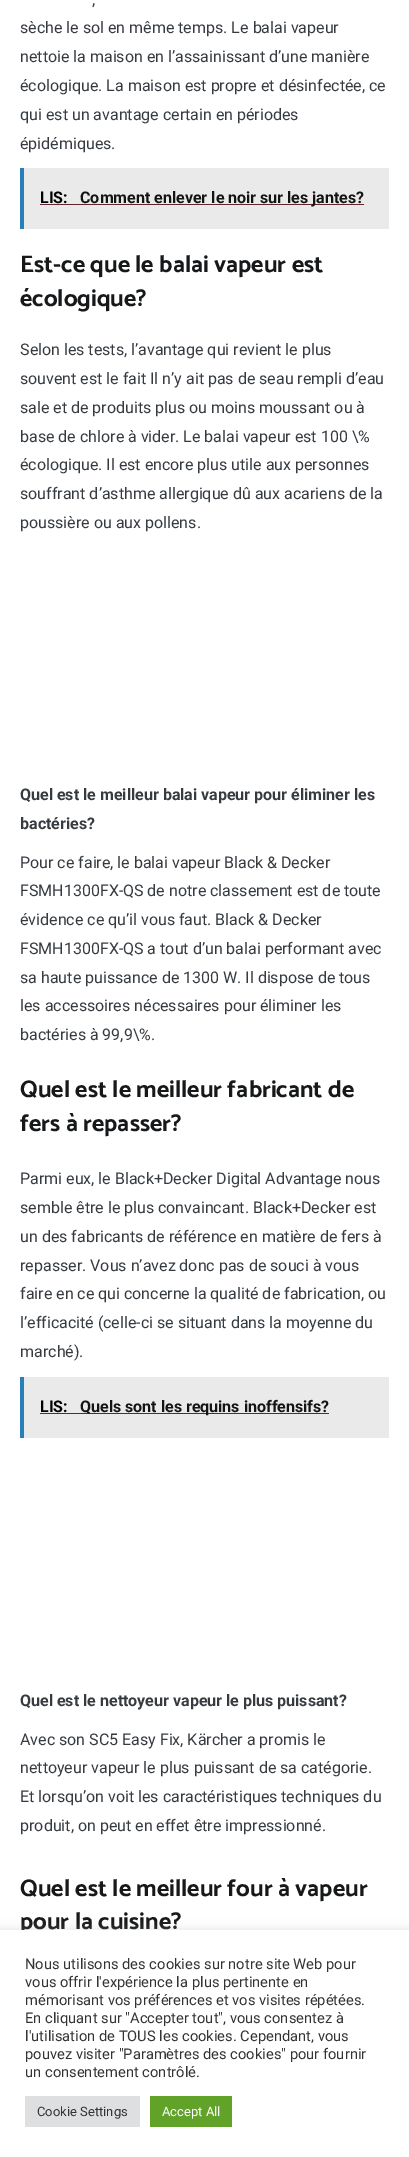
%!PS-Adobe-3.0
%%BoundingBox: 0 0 409 2157
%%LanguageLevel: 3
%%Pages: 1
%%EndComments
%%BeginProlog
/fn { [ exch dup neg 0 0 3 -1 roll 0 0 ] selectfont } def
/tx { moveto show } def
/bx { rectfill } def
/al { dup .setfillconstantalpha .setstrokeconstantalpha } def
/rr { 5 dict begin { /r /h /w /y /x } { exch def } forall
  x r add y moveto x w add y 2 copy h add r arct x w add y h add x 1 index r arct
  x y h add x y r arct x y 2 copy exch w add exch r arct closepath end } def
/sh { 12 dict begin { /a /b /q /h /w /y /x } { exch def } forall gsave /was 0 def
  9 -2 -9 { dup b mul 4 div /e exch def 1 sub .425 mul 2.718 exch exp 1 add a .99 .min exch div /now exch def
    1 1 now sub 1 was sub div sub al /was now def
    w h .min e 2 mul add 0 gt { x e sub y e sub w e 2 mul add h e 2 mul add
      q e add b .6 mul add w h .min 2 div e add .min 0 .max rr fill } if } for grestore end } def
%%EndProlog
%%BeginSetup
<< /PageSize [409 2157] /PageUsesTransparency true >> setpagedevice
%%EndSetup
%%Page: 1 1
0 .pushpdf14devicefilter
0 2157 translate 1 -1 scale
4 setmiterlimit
1 setgray
0 0 409 2157 bx
/Roboto-Regular 16 fn
0.212 0.231 0.251 setrgbcolor
(,) 92 5 tx
(sèche le sol en même temps. Le balai vapeur) 20 33 tx
(nettoie la maison en l’assainissant d’une manière) 20 62 tx
(écologique. La maison est propre et désinfectée, ce) 20 91 tx
(qui est un avantage certain en périodes) 20 120 tx
(épidémiques.) 20 149 tx
0.918 setgray
24 168 365 61 bx
0.161 0.502 0.725 setrgbcolor
20 168 4 61 bx
/Roboto-Bold 16 fn
0 setgray
(LIS:) 40 203 tx
0.392 0.141 0.188 setrgbcolor
40 204 324 1 bx
0.078 setgray
(Comment enlever le noir sur les jantes?) 80 203 tx
/Catamaran-Bold 24 fn
0.086 0.094 0.102 setrgbcolor
(Est-ce que le balai vapeur est) 20 272 tx
(écologique?) 20 306 tx
/Roboto-Regular 16 fn
0.212 0.231 0.251 setrgbcolor
(Selon les tests, l’avantage qui revient le plus) 20 355 tx
(souvent est le fait Il n’y ait pas de seau rempli d’eau) 20 384 tx
(sale et de produits plus ou moins moussant ou à) 20 413 tx
(base de chlore à vider. Le balai vapeur est 100 \\%) 20 442 tx
(écologique. Il est encore plus utile aux personnes) 20 470 tx
(souffrant d’asthme allergique dû aux acariens de la) 20 499 tx
(poussière ou aux pollens.) 20 528 tx
/Roboto-Bold 16 fn
(Quel est le meilleur balai vapeur pour éliminer les) 20 800 tx
(bactéries?) 20 829 tx
/Roboto-Regular 16 fn
(Pour ce faire, le balai vapeur Black & Decker) 20 868 tx
(FSMH1300FX-QS de notre classement est de toute) 20 896 tx
(évidence ce qu’il vous faut. Black & Decker) 20 925 tx
(FSMH1300FX-QS a tout d’un balai performant avec) 20 954 tx
(sa haute puissance de 1300 W. Il dispose de tous) 20 983 tx
(les accessoires nécessaires pour éliminer les) 20 1011 tx
(bactéries à 99,9\\%.) 20 1040 tx
/Catamaran-Bold 24 fn
0.086 0.094 0.102 setrgbcolor
(Quel est le meilleur fabricant de) 20 1097 tx
(fers à repasser?) 20 1131 tx
/Roboto-Regular 16 fn
0.212 0.231 0.251 setrgbcolor
(Parmi eux, le Black+Decker Digital Advantage nous) 20 1184 tx
(semble être le plus convaincant. Black+Decker est) 20 1213 tx
(un des fabricants de référence en matière de fers à) 20 1242 tx
(repasser. Vous n’avez donc pas de souci à vous) 20 1271 tx
(faire en ce qui concerne la qualité de fabrication, ou) 20 1299 tx
(l’efficacité \(celle-ci se situant dans la moyenne du) 20 1328 tx
(marché\).) 20 1357 tx
0.918 setgray
24 1377 365 61 bx
0.161 0.502 0.725 setrgbcolor
20 1377 4 61 bx
/Roboto-Bold 16 fn
0 setgray
(LIS:) 40 1412 tx
0.392 0.141 0.188 setrgbcolor
40 1413 289 1 bx
0.078 setgray
(Quels sont les requins inoffensifs?) 80 1412 tx
0.212 0.231 0.251 setrgbcolor
(Quel est le nettoyeur vapeur le plus puissant?) 20 1706 tx
/Roboto-Regular 16 fn
(Avec son SC5 Easy Fix, Kärcher a promis le) 20 1745 tx
(nettoyeur vapeur le plus puissant de sa catégorie.) 20 1773 tx
(Et lorsqu’on voit les caractéristiques techniques du) 20 1802 tx
(produit, on peut en effet être impressionné.) 20 1831 tx
/Catamaran-Bold 24 fn
0.086 0.094 0.102 setrgbcolor
(Quel est le meilleur four à vapeur) 20 1896 tx
(pour la cuisine?) 20 1929 tx
0.675 0.671 0.671 setrgbcolor
0 1929 409 227 0 5 0.3 sh
1 setgray
0 1930 409 227 bx
/Roboto-Regular 14.7 fn
0.2 setgray
(Nous utilisons des cookies sur notre site Web pour) 25 1969 tx
(vous offrir l'expérience la plus pertinente en) 25 1987 tx
(mémorisant vos préférences et vos visites répétées.) 25 2005 tx
(En cliquant sur "Accepter tout", vous consentez à) 25 2023 tx
(l'utilisation de TOUS les cookies. Cependant, vous) 25 2041 tx
(pouvez visiter "Paramètres des cookies" pour fournir) 25 2059 tx
(un consentement contrôlé.) 25 2077 tx
0.871 0.875 0.878 setrgbcolor
25 2096 115 31 bx
/Roboto-Regular 13 fn
0.2 setgray
(Cookie Settings) 37 2116 tx
0.38 0.635 0.161 setrgbcolor
150 2096 82 31 bx
1 setgray
(Accept All) 162 2116 tx
.poppdf14devicefilter showpage
%%EOF
